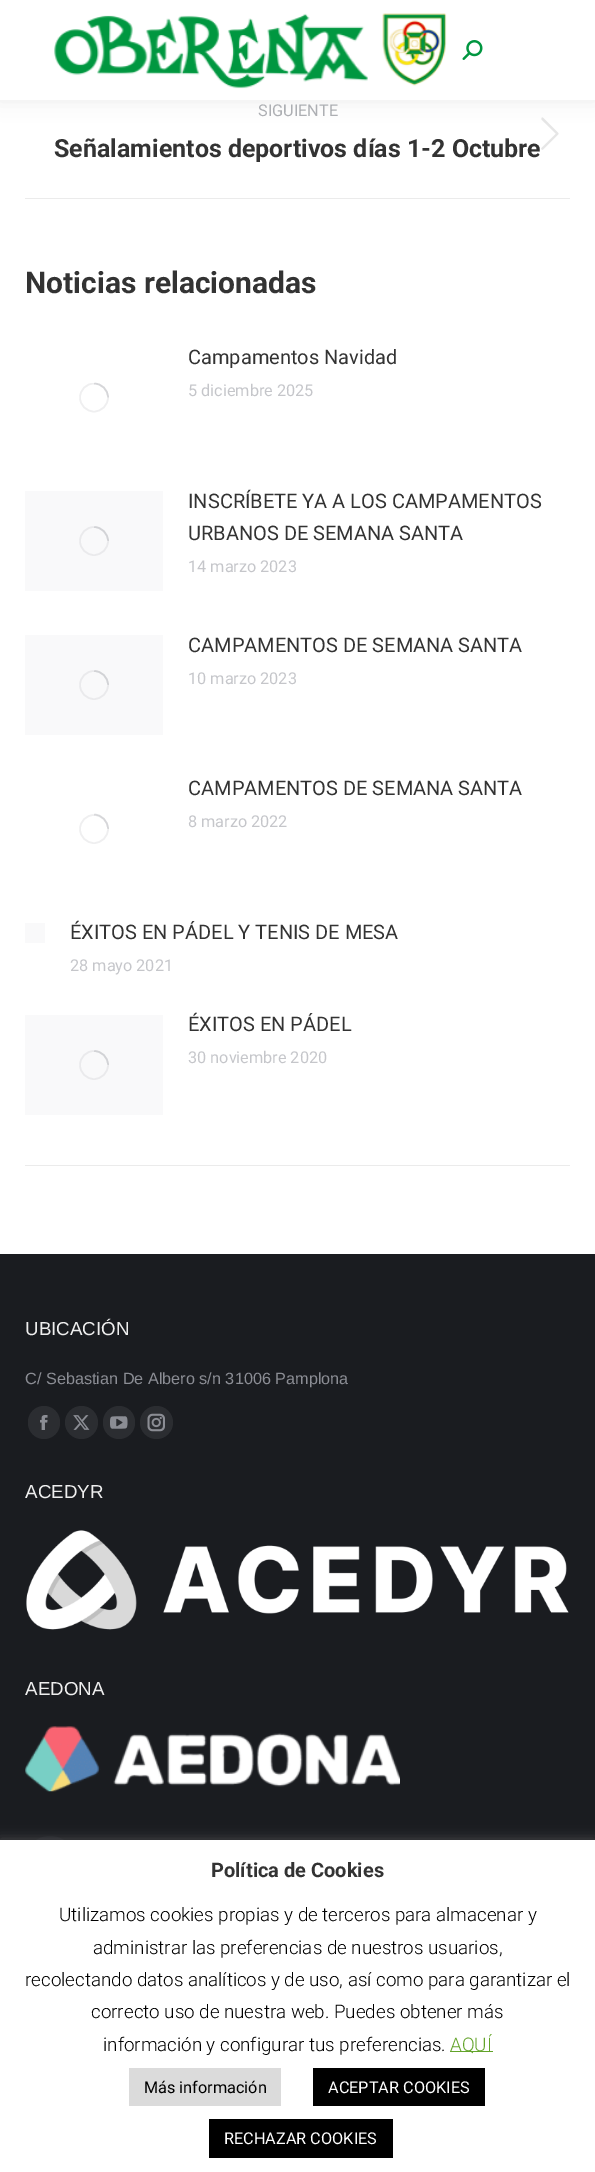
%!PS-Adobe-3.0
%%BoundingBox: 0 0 595 2172
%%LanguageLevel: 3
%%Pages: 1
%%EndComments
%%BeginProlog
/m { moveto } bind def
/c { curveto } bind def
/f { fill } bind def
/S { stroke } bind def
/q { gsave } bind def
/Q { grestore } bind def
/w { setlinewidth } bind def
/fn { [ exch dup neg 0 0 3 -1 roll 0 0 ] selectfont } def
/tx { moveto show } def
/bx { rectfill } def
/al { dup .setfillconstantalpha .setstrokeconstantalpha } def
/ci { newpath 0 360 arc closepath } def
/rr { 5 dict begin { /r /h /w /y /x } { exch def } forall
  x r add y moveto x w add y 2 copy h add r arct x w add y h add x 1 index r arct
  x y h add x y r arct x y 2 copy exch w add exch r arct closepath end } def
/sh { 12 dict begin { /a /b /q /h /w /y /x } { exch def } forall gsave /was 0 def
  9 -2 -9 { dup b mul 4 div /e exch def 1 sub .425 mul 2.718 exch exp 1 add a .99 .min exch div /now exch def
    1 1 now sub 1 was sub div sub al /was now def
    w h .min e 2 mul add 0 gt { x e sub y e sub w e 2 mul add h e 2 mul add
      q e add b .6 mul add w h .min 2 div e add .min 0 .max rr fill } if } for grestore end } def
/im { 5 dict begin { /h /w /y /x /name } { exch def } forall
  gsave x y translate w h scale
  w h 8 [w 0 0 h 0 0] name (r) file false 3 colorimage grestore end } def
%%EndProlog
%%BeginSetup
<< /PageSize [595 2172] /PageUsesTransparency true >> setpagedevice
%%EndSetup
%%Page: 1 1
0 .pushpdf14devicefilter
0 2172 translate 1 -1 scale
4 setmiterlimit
1 setgray
0 0 595 2172 bx
(image2.raw) 541 117 18 33 im
0 setgray
-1 -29 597 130 0 9.5 0.07 sh
1 setgray
0 0 595 100 bx
(image0.raw) 54 13 393 76 im
(image1.raw) 462 40 21 20 im
0.922 setgray
25 198 545 1 bx
/Roboto-Regular 16.25 fn
0.678 0.686 0.702 setrgbcolor
(SIGUIENTE) 258 116 tx
/Roboto-Bold 25 fn
0.2 setgray
(Señalamientos deportivos días 1-2 Octubre) 54 157 tx
0.922 setgray
25 1165 545 1 bx
/Roboto-Bold 30 fn
0.2 setgray
(Noticias relacionadas) 25 293 tx
q
79 383 30 30 rectclip
0.937 0.937 0.941 setrgbcolor
1.6 w
94 397.5 14 ci S
Q
0.25 al
0.545 0.553 0.58 setrgbcolor
1.6 w
108 397.5 m 108 389.5 101.5 383.5 94 383.5 c S
/Roboto-Regular 20 fn
1 al
0.2 setgray
(Campamentos Navidad) 188 364 tx
/Roboto-Regular 16.25 fn
0.773 0.776 0.792 setrgbcolor
(5 diciembre 2025) 188 396 tx
0.976 0.976 0.98 setrgbcolor
25 491 138 100 bx
0.918 0.918 0.925 setrgbcolor
94 541 14 ci S
0.25 al
0.545 0.553 0.58 setrgbcolor
108 541 m 108 533.5 101.5 527 94 527 c S
/Roboto-Regular 20 fn
1 al
0.2 setgray
(INSCRÍBETE YA A LOS CAMPAMENTOS) 188 508 tx
(URBANOS DE SEMANA SANTA) 188 540 tx
/Roboto-Regular 16.25 fn
0.773 0.776 0.792 setrgbcolor
(14 marzo 2023) 188 572 tx
0.976 0.976 0.98 setrgbcolor
25 635 138 100 bx
0.918 0.918 0.925 setrgbcolor
94 685 14 ci S
0.25 al
0.545 0.553 0.58 setrgbcolor
108 685 m 108 677 101.5 671 94 671 c S
/Roboto-Regular 20 fn
1 al
0.2 setgray
(CAMPAMENTOS DE SEMANA SANTA) 188 652 tx
/Roboto-Regular 16.25 fn
0.773 0.776 0.792 setrgbcolor
(10 marzo 2023) 188 684 tx
0.937 0.937 0.941 setrgbcolor
94 829 14 ci S
0.25 al
0.545 0.553 0.58 setrgbcolor
108 829 m 108 821 101.5 814.5 94 814.5 c S
/Roboto-Regular 20 fn
1 al
0.2 setgray
(CAMPAMENTOS DE SEMANA SANTA) 188 795 tx
/Roboto-Regular 16.25 fn
0.773 0.776 0.792 setrgbcolor
(8 marzo 2022) 188 827 tx
0.976 0.976 0.98 setrgbcolor
25 923 20 20 bx
/Roboto-Regular 20 fn
0.2 setgray
(ÉXITOS EN PÁDEL Y TENIS DE MESA) 70 939 tx
/Roboto-Regular 16.25 fn
0.773 0.776 0.792 setrgbcolor
(28 mayo 2021) 70 971 tx
0.976 0.976 0.98 setrgbcolor
25 1015 138 100 bx
0.918 0.918 0.925 setrgbcolor
94 1065 14 ci S
0.25 al
0.545 0.553 0.58 setrgbcolor
108 1065 m 108 1057 101.5 1051 94 1051 c S
/Roboto-Regular 20 fn
1 al
0.2 setgray
(ÉXITOS EN PÁDEL) 188 1031 tx
/Roboto-Regular 16.25 fn
0.773 0.776 0.792 setrgbcolor
(30 noviembre 2020) 188 1063 tx
0.102 0.11 0.125 setrgbcolor
0 1254 595 586 bx
/LiberationSans-Regular 18.75 fn
0.933 setgray
(UBICACIÓN) 25 1335 tx
/LiberationSans-Regular 16.25 fn
0.545 0.553 0.58 setrgbcolor
(C/ Sebastian De Albero s/n 31006 Pamplona) 25 1384 tx
0.169 0.176 0.192 setrgbcolor
28 1406 32 33 16 rr f
(image3.raw) 40 1415 8 15 im
81.5 1422.5 16.5 ci f
(image4.raw) 73 1415 17 15 im
103 1406 32 33 16 rr f
(image5.raw) 110 1416 18 13 im
156.5 1422.5 16.5 ci f
(image6.raw) 147 1413 18 19 im
/LiberationSans-Regular 18.75 fn
0.933 setgray
(ACEDYR) 25 1498 tx
(image7.raw) 26 1530 543 100 im
(AEDONA) 25 1695 tx
(image8.raw) 25 1726 375 66 im
0.125 0.133 0.149 setrgbcolor
50 1861 25 ci f
0.675 0.671 0.671 setrgbcolor
0 1839 595 332 0 6 0.3 sh
1 setgray
0 1840 595 332 bx
/Roboto-Bold 20 fn
0.2 setgray
(Política de Cookies) 211 1877 tx
/Roboto-Light 18.75 fn
0 setgray
(Utilizamos cookies propias y de terceros para almacenar y) 59 1921 tx
(administrar las preferencias de nuestros usuarios,) 93 1954 tx
(recolectando datos analíticos y de uso, así como para garantizar el) 25 1986 tx
(correcto uso de nuestra web. Puedes obtener más) 91 2018 tx
(información y configurar tus preferencias.) 103 2051 tx
0.384 0.639 0.161 setrgbcolor
450 2051 43 1 bx
(AQUÍ) 450 2051 tx
0.859 setgray
129 2068 152 38 bx
/Roboto-Regular 16.25 fn
0 setgray
(Más información) 144 2093 tx
313 2068 172 38 bx
1 setgray
(ACEPTAR COOKIES) 328 2093 tx
0 setgray
209 2119 184 39 bx
1 setgray
(RECHAZAR COOKIES) 224 2144 tx
.poppdf14devicefilter showpage
%%EOF
